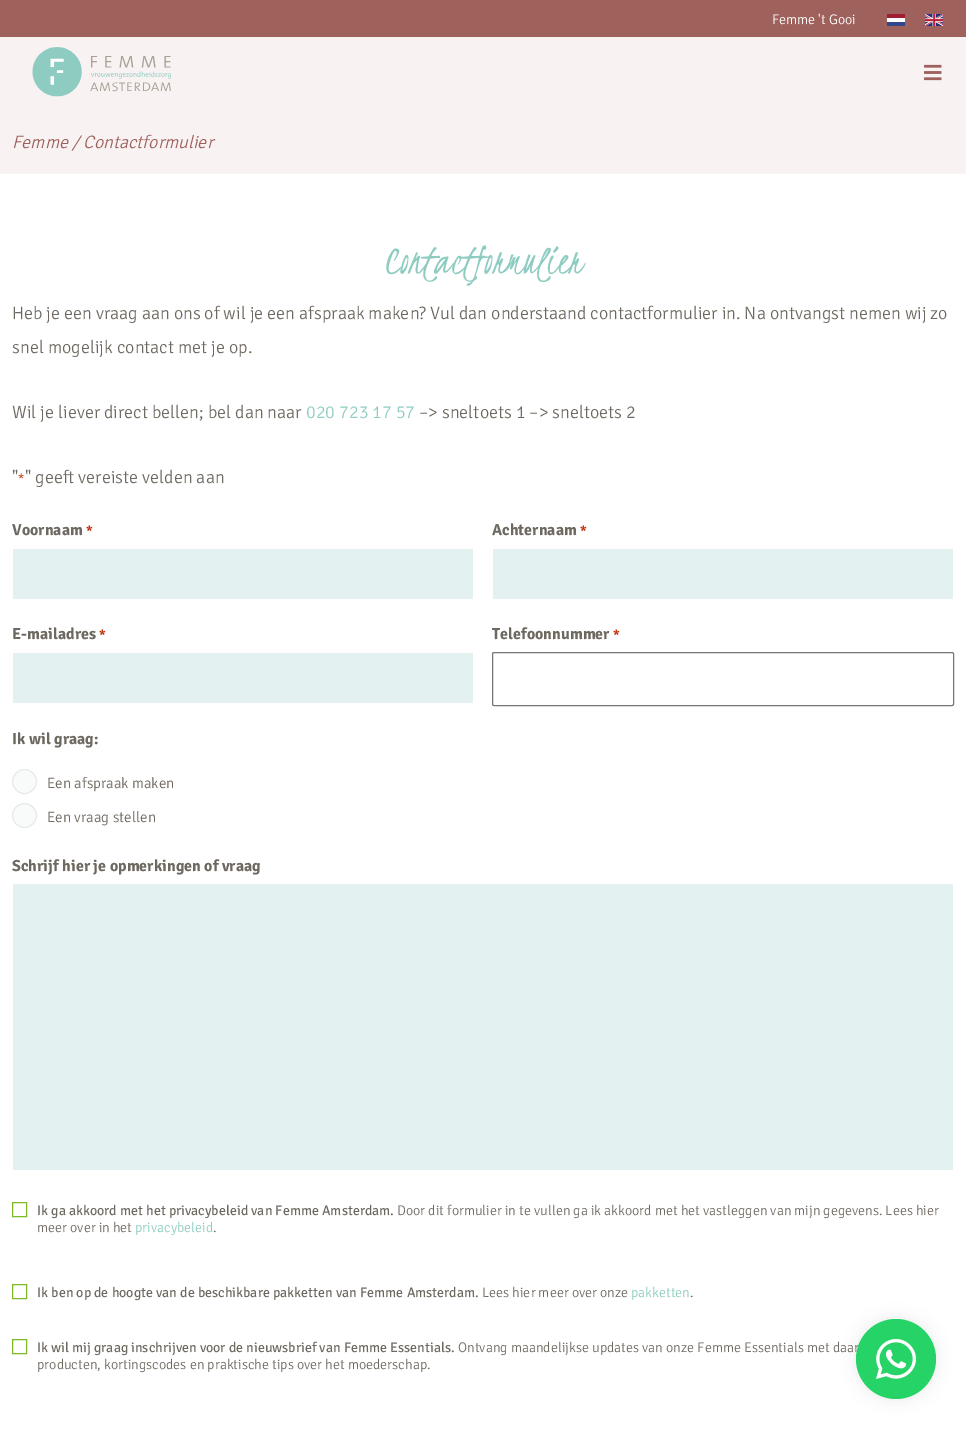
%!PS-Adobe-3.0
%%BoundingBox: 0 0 966 1429
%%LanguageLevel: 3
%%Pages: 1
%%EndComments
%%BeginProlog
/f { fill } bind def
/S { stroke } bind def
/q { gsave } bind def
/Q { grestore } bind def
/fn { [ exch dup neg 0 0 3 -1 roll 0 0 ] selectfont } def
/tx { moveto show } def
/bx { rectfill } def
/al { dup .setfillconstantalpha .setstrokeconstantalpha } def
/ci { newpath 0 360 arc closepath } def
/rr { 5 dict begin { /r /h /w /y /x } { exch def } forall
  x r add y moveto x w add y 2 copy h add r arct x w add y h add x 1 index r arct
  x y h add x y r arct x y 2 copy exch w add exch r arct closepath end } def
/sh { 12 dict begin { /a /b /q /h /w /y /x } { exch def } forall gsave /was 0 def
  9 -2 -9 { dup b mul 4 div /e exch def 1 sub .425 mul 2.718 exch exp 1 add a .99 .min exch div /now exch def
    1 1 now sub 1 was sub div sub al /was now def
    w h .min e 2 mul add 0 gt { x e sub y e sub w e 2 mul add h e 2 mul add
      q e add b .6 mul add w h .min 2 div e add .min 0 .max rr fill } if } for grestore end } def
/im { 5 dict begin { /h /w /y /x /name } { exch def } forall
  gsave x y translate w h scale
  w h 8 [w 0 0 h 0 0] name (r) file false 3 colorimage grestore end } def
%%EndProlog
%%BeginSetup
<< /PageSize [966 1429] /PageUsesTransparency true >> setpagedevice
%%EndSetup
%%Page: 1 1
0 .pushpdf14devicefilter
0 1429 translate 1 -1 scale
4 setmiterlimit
0.973 0.949 0.953 setrgbcolor
0 0 966 1429 bx
0.62 0.38 0.361 setrgbcolor
0 0 966 37 bx
/SignikaNegative-Light 14 fn
1 setgray
(Femme 't Gooi) 772 24 tx
(image0.raw) 887 14 18 12 im
(image1.raw) 925 14 18 12 im
(image2.raw) 32 47 139 50 im
(image3.raw) 924 64 18 17 im
/SignikaNegative-LightItalic 18 fn
0.62 0.38 0.361 setrgbcolor
(Femme / Contactformulier) 12 148 tx
1 setgray
0 174 966 1255 bx
/Kristi-Regular 45 fn
0.557 0.8 0.757 setrgbcolor
(Contactformulier) 384 273 tx
/SignikaNegative-Light 18 fn
0.431 0.412 0.376 setrgbcolor
(Heb je een vraag aan ons of wil je een afspraak maken? Vul dan onderstaand contactformulier in. Na ontvangst nemen wij zo) 12 319 tx
(snel mogelijk contact met je op.) 12 353 tx
(Wil je liever direct bellen; bel dan naar) 12 418 tx
0.557 0.8 0.757 setrgbcolor
(020 723 17 57) 306 418 tx
0.431 0.412 0.376 setrgbcolor
(–> sneltoets 1 –> sneltoets 2) 419 418 tx
(") 12 483 tx
/SignikaNegative-Light 13 fn
0.753 0.169 0.039 setrgbcolor
(*) 18 483 tx
/SignikaNegative-Light 18 fn
0.431 0.412 0.376 setrgbcolor
(" geeft vereiste velden aan) 25 483 tx
/SignikaNegative-Bold 16 fn
(Voornaam) 12 535 tx
/SignikaNegative-Bold 13 fn
0.753 0.169 0.039 setrgbcolor
(*) 86 535 tx
0.89 0.945 0.941 setrgbcolor
13 549 460 50 bx
/SignikaNegative-Bold 16 fn
0.431 0.412 0.376 setrgbcolor
(Achternaam) 492 535 tx
/SignikaNegative-Bold 13 fn
0.753 0.169 0.039 setrgbcolor
(*) 580 535 tx
0.89 0.945 0.941 setrgbcolor
493 549 460 50 bx
/SignikaNegative-Bold 16 fn
0.431 0.412 0.376 setrgbcolor
(E-mailadres) 12 639 tx
/SignikaNegative-Bold 13 fn
0.753 0.169 0.039 setrgbcolor
(*) 99 639 tx
0.89 0.945 0.941 setrgbcolor
13 653 460 50 bx
/SignikaNegative-Bold 16 fn
0.431 0.412 0.376 setrgbcolor
(Telefoonnummer) 492 639 tx
/SignikaNegative-Bold 13 fn
0.753 0.169 0.039 setrgbcolor
(*) 613 639 tx
0.463 setgray
492.5 652.5 461 53 1.5 rr S
/SignikaNegative-Bold 16 fn
0.431 0.412 0.376 setrgbcolor
(Ik wil graag:) 12 744 tx
0.976 0.98 0.98 setrgbcolor
24.5 781.5 12 ci q f Q
0.902 0.914 0.922 setrgbcolor
S
/SignikaNegative-Light 15 fn
0.431 0.412 0.376 setrgbcolor
(Een afspraak maken) 47 788 tx
0.976 0.98 0.98 setrgbcolor
24.5 815.5 12 ci q f Q
0.902 0.914 0.922 setrgbcolor
S
0.431 0.412 0.376 setrgbcolor
(Een vraag stellen) 47 822 tx
/SignikaNegative-Bold 16 fn
(Schrijf hier je opmerkingen of vraag) 12 871 tx
0.89 0.945 0.941 setrgbcolor
13 884 940 286 bx
0.49 0.725 0.157 setrgbcolor
12.5 1202.5 14 14 rectstroke
/SignikaNegative-Regular 14 fn
0.431 0.412 0.376 setrgbcolor
(Ik ga akkoord met het privacybeleid van Femme Amsterdam.) 37 1215 tx
/SignikaNegative-Light 14 fn
(Door dit formulier in te vullen ga ik akkoord met het vastleggen van mijn gegevens. Lees hier) 397 1215 tx
(meer over in het) 37 1232 tx
0.557 0.8 0.757 setrgbcolor
(privacybeleid) 135 1232 tx
0.431 0.412 0.376 setrgbcolor
(.) 213 1232 tx
0.49 0.725 0.157 setrgbcolor
12.5 1284.5 14 14 rectstroke
/SignikaNegative-Regular 14 fn
0.431 0.412 0.376 setrgbcolor
(Ik ben op de hoogte van de beschikbare pakketten van Femme Amsterdam.) 37 1297 tx
/SignikaNegative-Light 14 fn
(Lees hier meer over onze) 482 1297 tx
0.557 0.8 0.757 setrgbcolor
(pakketten) 631 1297 tx
0.431 0.412 0.376 setrgbcolor
(.) 690 1297 tx
0.49 0.725 0.157 setrgbcolor
12.5 1339.5 14 14 rectstroke
/SignikaNegative-Regular 14 fn
0.431 0.412 0.376 setrgbcolor
(Ik wil mij graag inschrijven voor de nieuwsbrief van Femme Essentials.) 37 1352 tx
/SignikaNegative-Light 14 fn
(Ontvang maandelijkse updates van onze Femme Essentials met daar) 458 1352 tx
(producten, kortingscodes en praktische tips over het moederschap.) 37 1369 tx
0 setgray
855 1318 82 82 41 7.5 0.07 sh
0.145 0.827 0.4 setrgbcolor
896 1359 40 ci f
(image4.raw) 876 1339 40 40 im
.poppdf14devicefilter showpage
%%EOF
